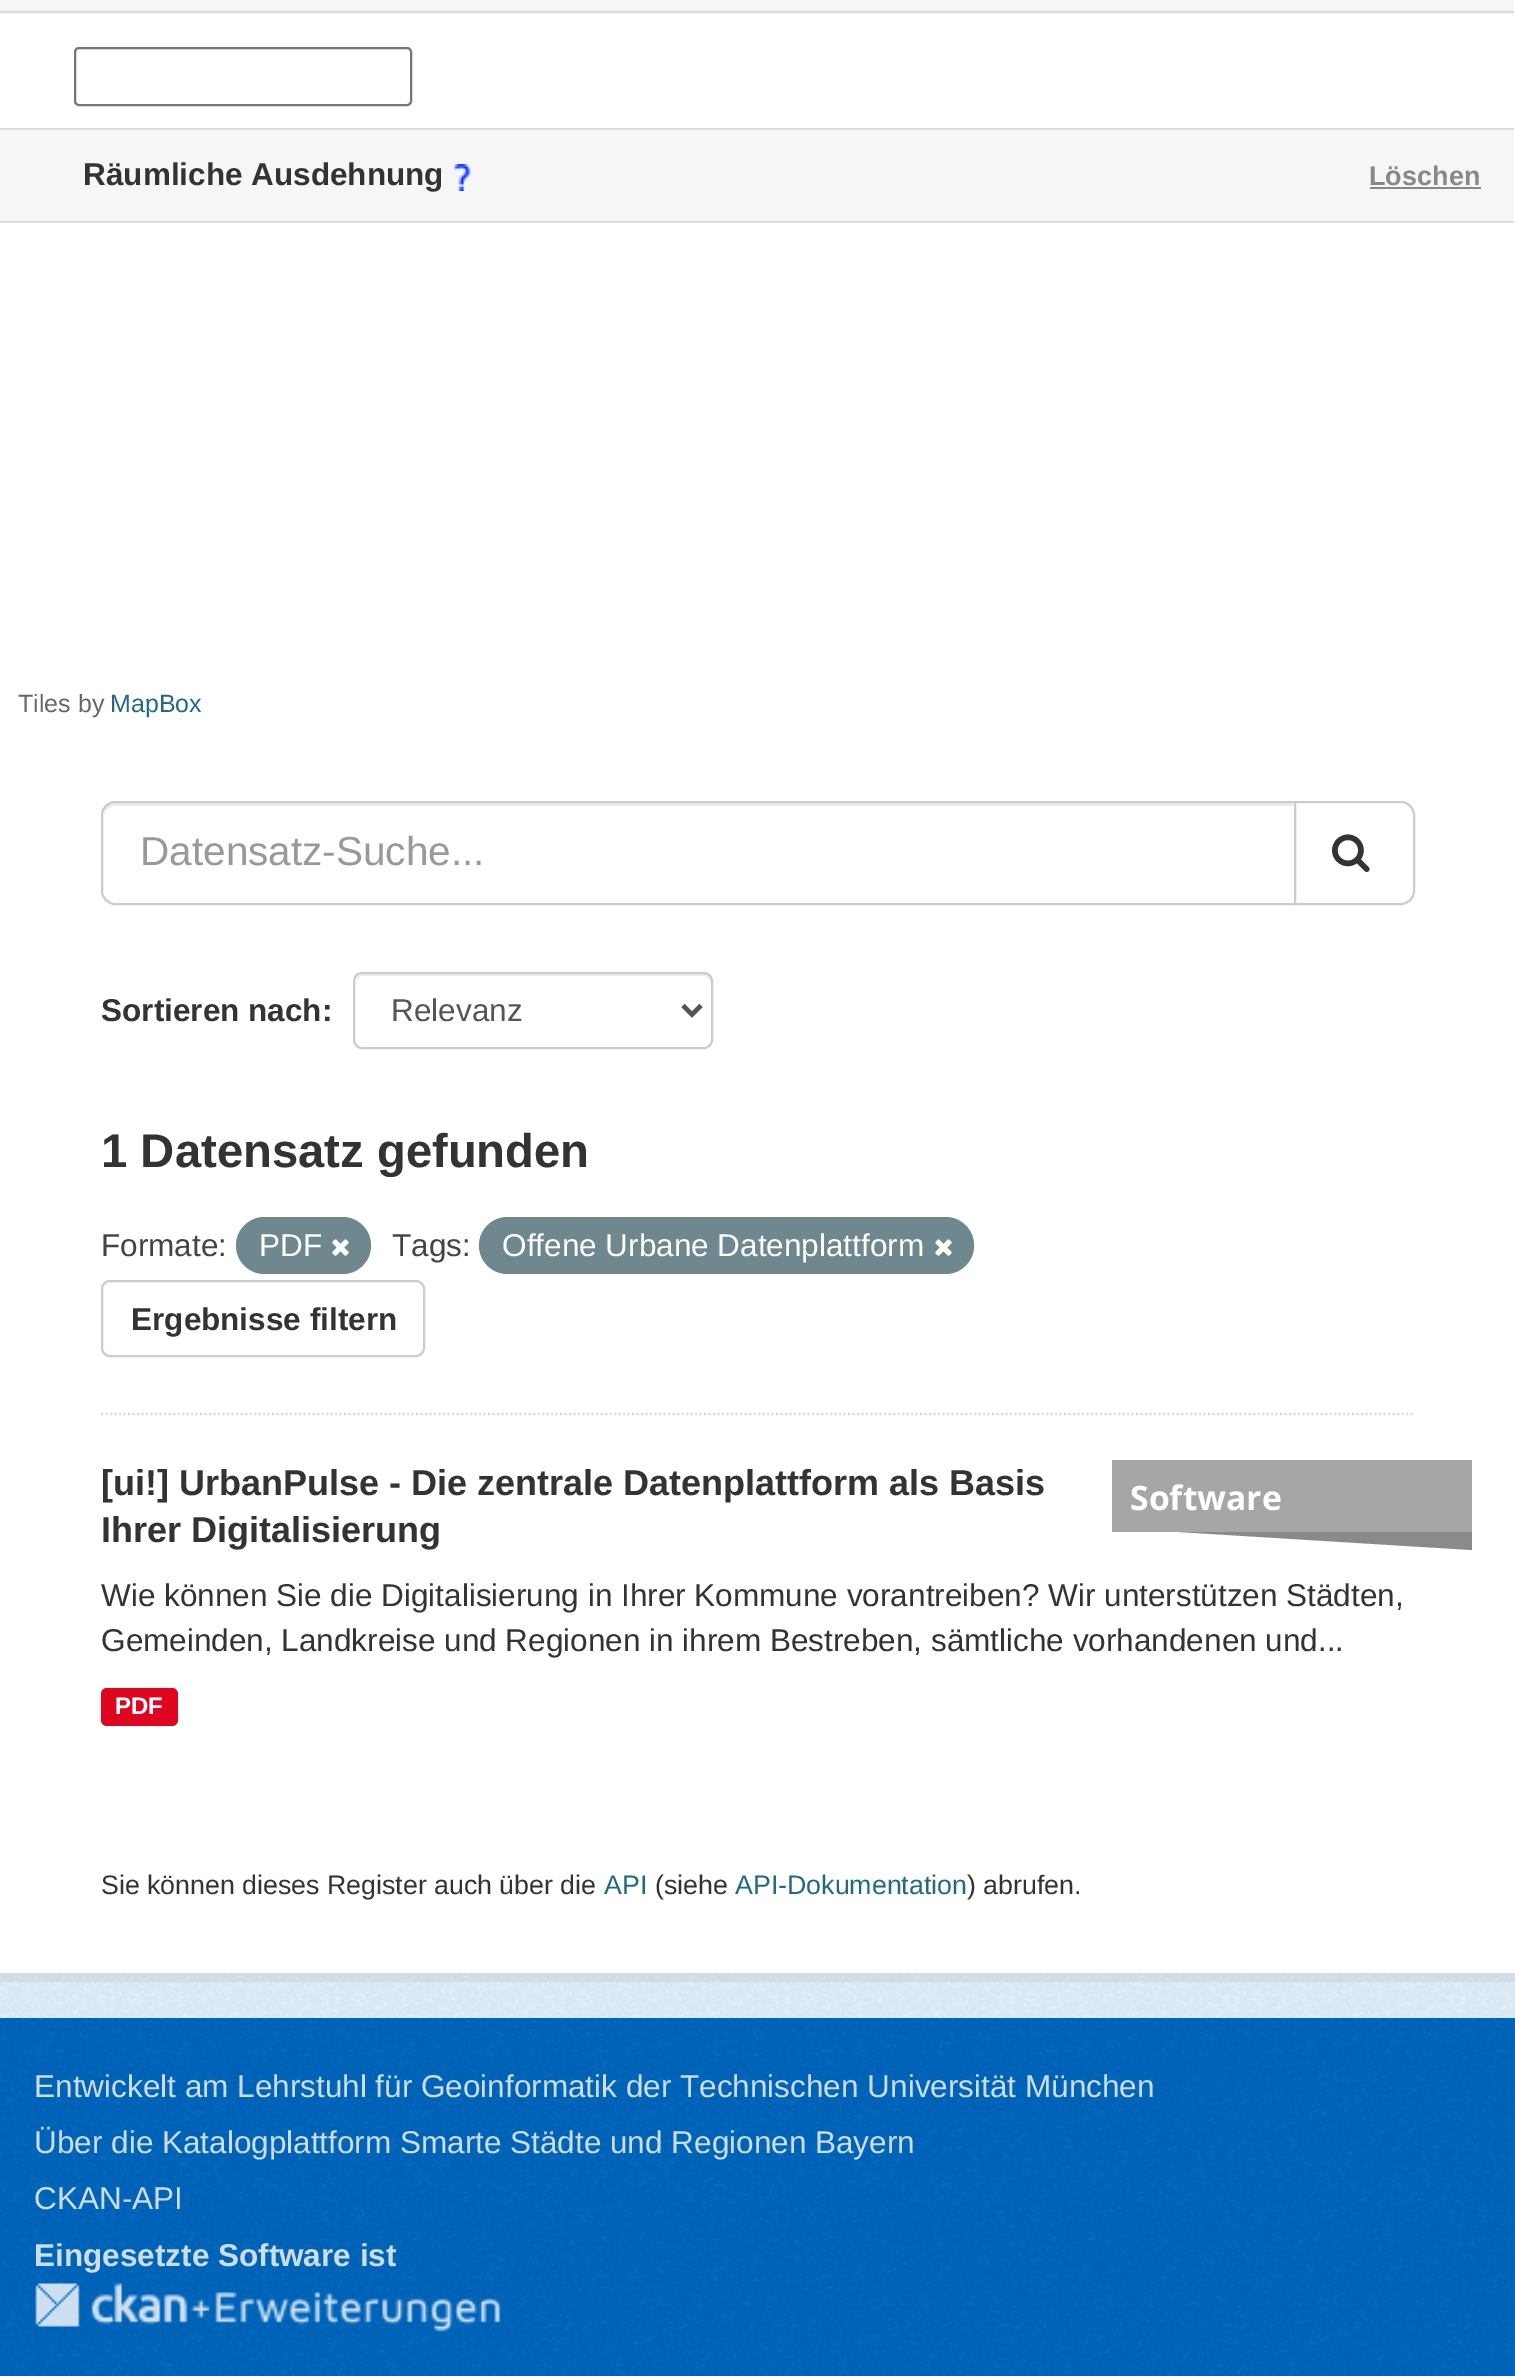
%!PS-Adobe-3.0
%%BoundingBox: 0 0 1515 2376
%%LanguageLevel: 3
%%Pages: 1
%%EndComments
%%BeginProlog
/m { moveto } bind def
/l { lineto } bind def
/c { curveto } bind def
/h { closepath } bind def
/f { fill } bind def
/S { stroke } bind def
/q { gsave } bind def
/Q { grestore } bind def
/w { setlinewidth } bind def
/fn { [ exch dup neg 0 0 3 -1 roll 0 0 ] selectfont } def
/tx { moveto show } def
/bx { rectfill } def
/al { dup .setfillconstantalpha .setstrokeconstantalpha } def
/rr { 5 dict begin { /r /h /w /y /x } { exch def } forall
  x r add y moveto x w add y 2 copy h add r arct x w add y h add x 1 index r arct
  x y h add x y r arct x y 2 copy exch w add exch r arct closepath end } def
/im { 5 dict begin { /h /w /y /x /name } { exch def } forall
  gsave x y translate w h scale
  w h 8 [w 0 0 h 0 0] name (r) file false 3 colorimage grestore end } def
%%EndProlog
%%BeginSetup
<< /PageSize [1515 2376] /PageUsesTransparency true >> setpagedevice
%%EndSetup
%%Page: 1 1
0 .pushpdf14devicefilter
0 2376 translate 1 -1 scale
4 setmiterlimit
0.882 0.941 0.988 setrgbcolor
0 0 1515 2376 bx
(image0.raw) 0 1973 1515 45 im
0.05 al
0 setgray
9 w
-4.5 -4.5 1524 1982 rectstroke
1 al
1 setgray
0 0 1515 1973 bx
0.965 setgray
0 0 1514 14 bx
0.867 setgray
0 11 1514 2 bx
0.463 setgray
2 w
75 48 336 57 4 rr S
0.965 setgray
0 130 1514 91 bx
0.867 setgray
0 128 1514 2 bx
0 221 1514 2 bx
/LiberationSans-Bold 31.5 fn
0.2 setgray
(Räumliche Ausdehnung) 83 185 tx
(image1.raw) 454 164 17 27 im
/LiberationSans-Bold 27 fn
0.533 setgray
(Löschen) 1369 185 tx
1370 187 111 2 bx
/LiberationSans-Regular 25 fn
0.4 setgray
(Tiles by) 18 712 tx
0.125 0.42 0.51 setrgbcolor
(MapBox) 110 712 tx
0.867 setgray
2.2 w
[2.25 2.25] 0 setdash
101 1414 m 1415 1414 l S
0.925 setgray
115 806 m 1294 806 l 1294 803 l 115 803 l 109 803 104 808 104 814 c 104 817 l 104 811 109 806 115 806 c h f
0.8 setgray
2 w
[] 0 setdash
115 802 m 1295 802 l 1295 904 l 115 904 l 108 904 102 898 102 891 c 102 815 l 102 808 108 802 115 802 c h S
/LiberationSans-Regular 40.5 fn
0.6 setgray
(Datensatz-Suche...) 140 865 tx
1 setgray
1295 802 m 1401 802 l 1408 802 1414 808 1414 815 c 1414 891 l 1414 898 1408 904 1401 904 c 1295 904 l h q f Q
0.8 setgray
S
(image2.raw) 1332 834 38 38 im
/LiberationSans-Bold 31.5 fn
0.2 setgray
(Sortieren nach:) 101 1021 tx
0.925 setgray
362 976 m 704 976 l 708 976 711 980 711 983 c 711 979 709 974 704 974 c 363 974 l 358 974 356 979 356 983 c 356 980 359 976 362 976 c h f
0.8 setgray
354 973 358 75 8 rr S
0.333 setgray
4.5 w
683 1005.5 m 692 1014.5 l 701 1005.5 l S
/LiberationSans-Regular 31.5 fn
(Relevanz) 391 1021 tx
/LiberationSans-Bold 47.25 fn
0.2 setgray
(1 Datensatz gefunden) 101 1167 tx
/LiberationSans-Regular 31.5 fn
0.267 setgray
(Formate:) 101 1256 tx
0.435 0.533 0.565 setrgbcolor
236 1217 135 57 28.5 rr f
1 setgray
(PDF) 259 1256 tx
(image3.raw) 332 1239 17 17 im
0.267 setgray
(Tags:) 392 1256 tx
0.435 0.533 0.565 setrgbcolor
479 1217 495 57 28.5 rr f
1 setgray
(Offene Urbane Datenplattform) 502 1256 tx
(image3.raw) 935 1239 17 17 im
0.8 setgray
2 w
102 1281 322 75 8 rr S
/LiberationSans-Bold 31.5 fn
0.2 setgray
(Ergebnisse filtern) 131 1330 tx
/LiberationSans-Bold 36 fn
([ui!] UrbanPulse - Die zentrale Datenplattform als Basis) 101 1495 tx
(Ihrer Digitalisierung) 101 1542 tx
/LiberationSans-Regular 31.5 fn
(Wie können Sie die Digitalisierung in Ihrer Kommune vorantreiben? Wir unterstützen Städten,) 101 1606 tx
(Gemeinden, Landkreise und Regionen in ihrem Bestreben, sämtliche vorhandenen und...) 101 1651 tx
0.651 setgray
1112 1460 360 72 bx
/OpenSans-Bold 33.75 fn
1 setgray
(Software) 1130 1510 tx
0.541 setgray
1472 1532 m 1472 1550 l 1179 1532 l h f
0.878 0.02 0.118 setrgbcolor
101 1688 77 38 6 rr f
/LiberationSans-Bold 24 fn
1 setgray
(PDF) 115 1714 tx
/LiberationSans-Regular 26.75 fn
0.2 setgray
(Sie können dieses Register auch über die) 101 1894 tx
0.125 0.42 0.51 setrgbcolor
(API) 604 1894 tx
0.2 setgray
(\(siehe) 655 1894 tx
0.125 0.42 0.51 setrgbcolor
(API-Dokumentation) 735 1894 tx
0.2 setgray
(\) abrufen.) 967 1894 tx
0 0.396 0.741 setrgbcolor
0 2018 1515 358 bx
(image4.raw) 0 2018 1515 358 im
/LiberationSans-Regular 31.5 fn
0.8 0.871 0.89 setrgbcolor
(Entwickelt am Lehrstuhl für Geoinformatik der Technischen Universität München) 34 2097 tx
(Über die Katalogplattform Smarte Städte und Regionen Bayern) 34 2153 tx
(CKAN-API) 34 2209 tx
/LiberationSans-Bold 31.5 fn
(Eingesetzte Software ist) 34 2266 tx
(image5.raw) 35 2283 466 49 im
.poppdf14devicefilter showpage
%%EOF
